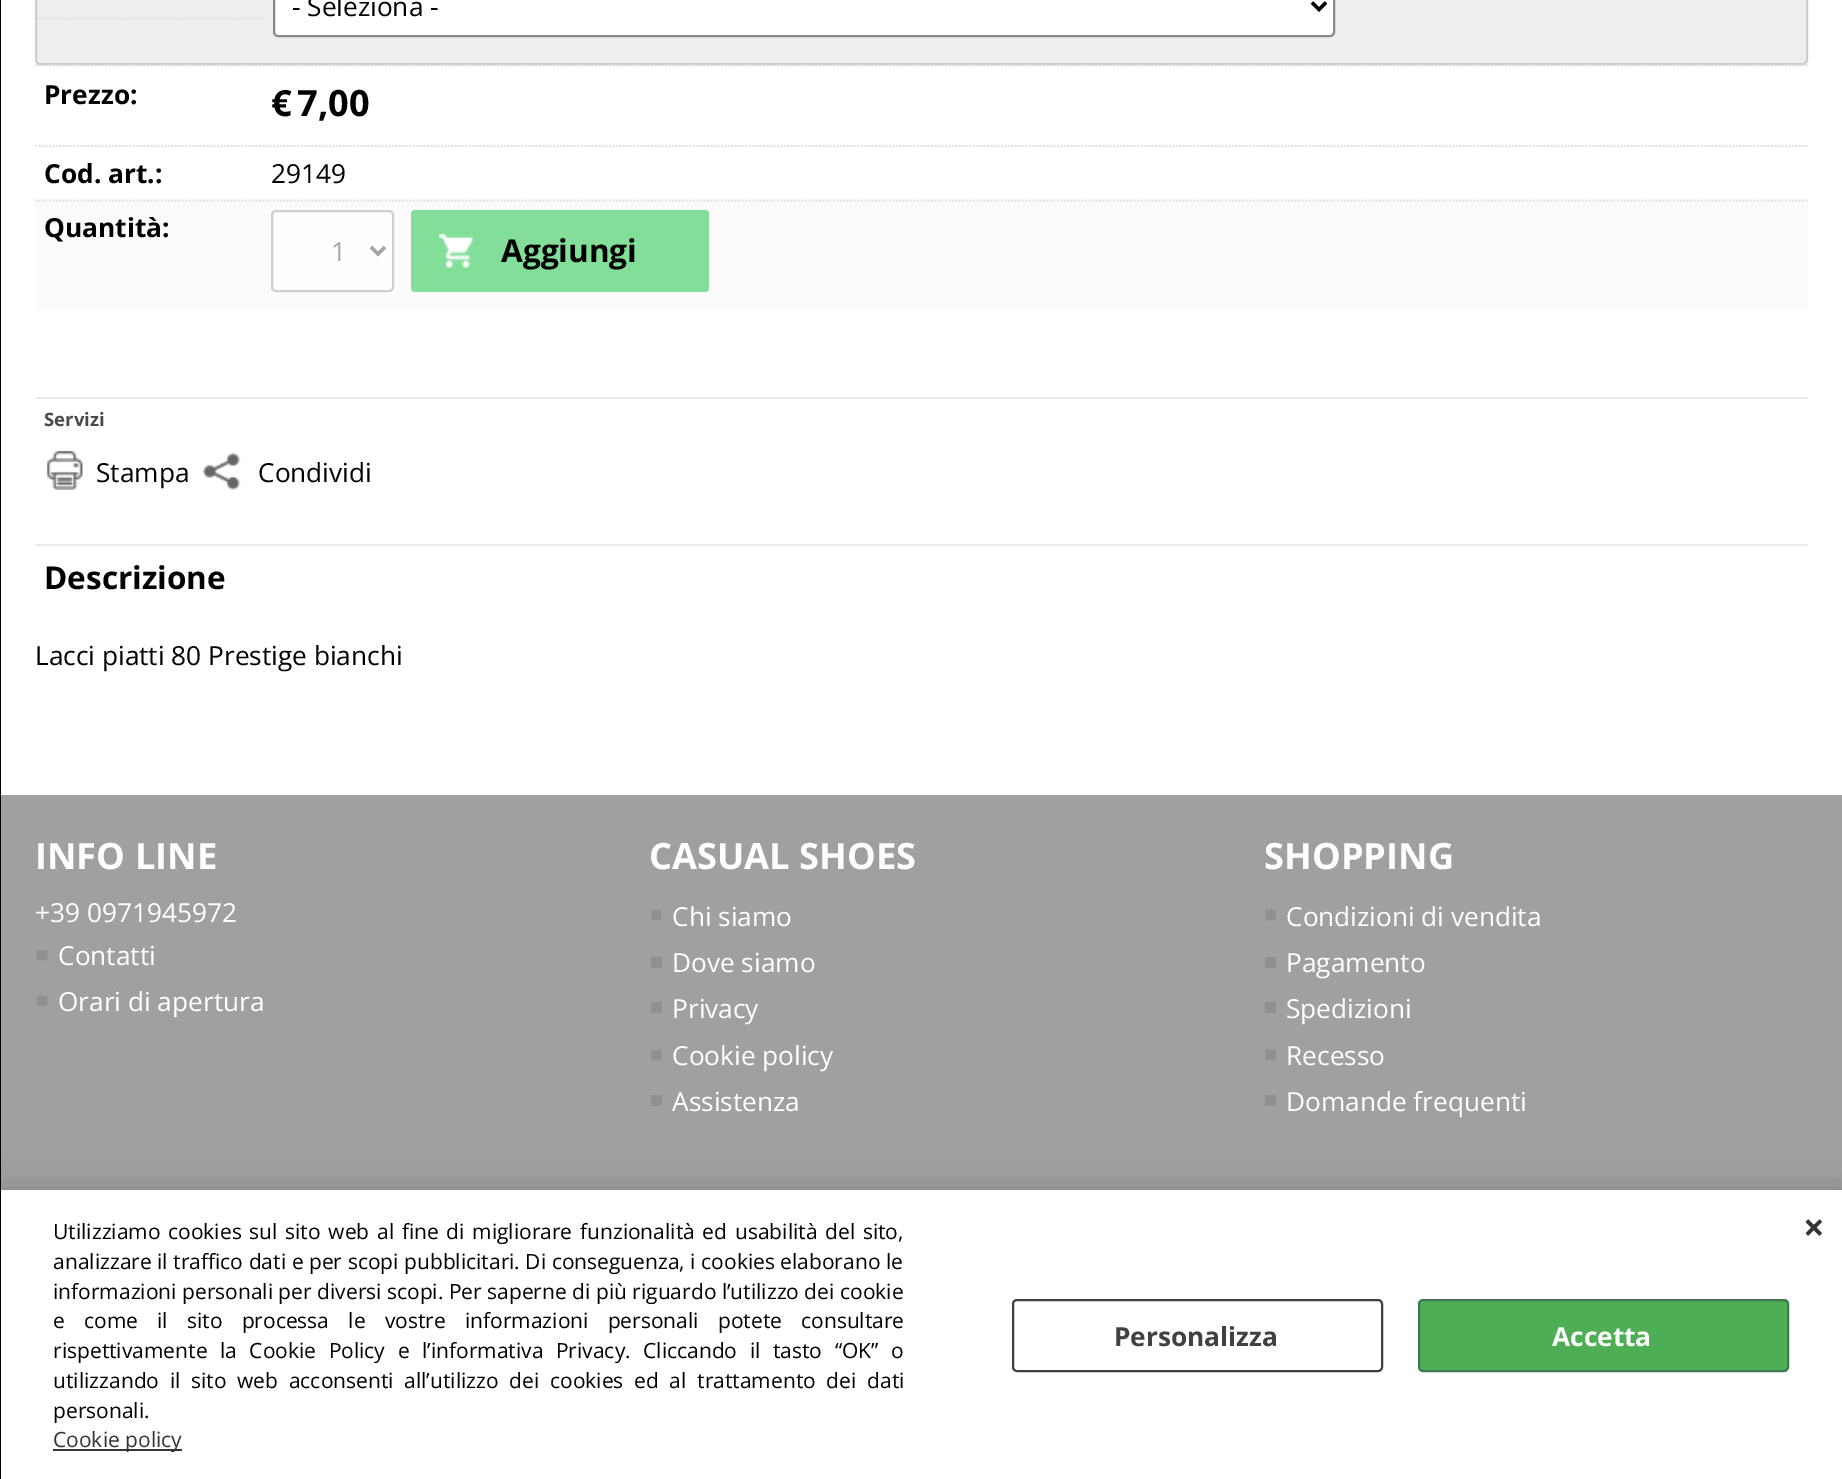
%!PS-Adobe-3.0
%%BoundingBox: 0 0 1842 1479
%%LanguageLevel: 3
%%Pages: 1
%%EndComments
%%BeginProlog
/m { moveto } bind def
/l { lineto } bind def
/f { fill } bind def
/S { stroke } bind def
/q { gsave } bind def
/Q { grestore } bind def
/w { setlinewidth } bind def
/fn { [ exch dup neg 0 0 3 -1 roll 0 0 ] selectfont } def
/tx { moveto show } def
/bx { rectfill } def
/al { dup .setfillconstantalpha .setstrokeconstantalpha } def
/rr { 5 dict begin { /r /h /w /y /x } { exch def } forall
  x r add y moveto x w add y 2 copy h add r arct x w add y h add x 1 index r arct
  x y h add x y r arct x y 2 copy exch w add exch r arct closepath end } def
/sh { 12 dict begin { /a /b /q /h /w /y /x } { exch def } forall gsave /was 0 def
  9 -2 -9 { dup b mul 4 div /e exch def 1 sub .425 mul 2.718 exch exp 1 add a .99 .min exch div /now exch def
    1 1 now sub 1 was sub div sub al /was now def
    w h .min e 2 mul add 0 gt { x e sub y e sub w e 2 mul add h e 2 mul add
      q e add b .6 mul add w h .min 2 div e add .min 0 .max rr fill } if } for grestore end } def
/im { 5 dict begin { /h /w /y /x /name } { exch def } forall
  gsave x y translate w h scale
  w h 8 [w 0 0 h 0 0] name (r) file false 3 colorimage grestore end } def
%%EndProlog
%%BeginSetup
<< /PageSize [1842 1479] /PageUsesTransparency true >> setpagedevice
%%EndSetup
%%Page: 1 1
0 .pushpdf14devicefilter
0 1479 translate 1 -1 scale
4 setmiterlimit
1 setgray
0 0 1842 1479 bx
0.627 setgray
1 795 1841 395 bx
0 setgray
0 1190 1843 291 0 16 0.2 sh
0 0 1 1479 bx
0.933 setgray
36 -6 1771 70 4 rr q f Q
0.8 setgray
2 w
S
1 setgray
274 -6 1060 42 4 rr q f Q
0.533 setgray
S
0 setgray
3.5 w
1312 2.5 m 1319 9.5 l 1326 2.5 l S
/OpenSans-Regular 26.25 fn
(- Seleziona -) 292 16 tx
0.867 setgray
1.8 w
[1.75 1.75] 0 setdash
37 18.5 m 264 18.5 l S
35 65.5 m 262.5 65.5 l S
/OpenSans-Bold 26.25 fn
0 setgray
(Prezzo:) 44 104 tx
0.867 setgray
262.5 65.5 m 1808 65.5 l S
/OpenSans-Bold 36.25 fn
0 setgray
(€) 271 116 tx
(7,00) 297 116 tx
0.867 setgray
35 146 m 262.5 146 l S
/OpenSans-Bold 26.25 fn
0 setgray
(Cod. art.:) 44 183 tx
0.867 setgray
262.5 146 m 1808 146 l S
/OpenSans-Regular 26.25 fn
0 setgray
(29149) 271 183 tx
0.984 setgray
35 200 1773 110 bx
0.867 setgray
35 200.5 m 262.5 200.5 l S
/OpenSans-Bold 26.25 fn
0 setgray
(Quantità:) 44 237 tx
0.867 setgray
262.5 200.5 m 1808 200.5 l S
0.996 setgray
272 211 121 80 4 rr q f Q
0.808 setgray
2 w
[] 0 setdash
S
0.647 setgray
3.5 w
371 247 m 378 254 l 385 247 l S
/OpenSans-Regular 26.25 fn
(1) 331 261 tx
0.51 0.871 0.6 setrgbcolor
411 210 298 82 4 rr f
(image0.raw) 439 234 34 34 im
/OpenSans-Bold 31.5 fn
0 setgray
(Aggiungi) 501 262 tx
0.918 setgray
35 397 1773 2 bx
/OpenSans-Bold 18.5 fn
0.29 setgray
(Servizi) 44 426 tx
(image1.raw) 46 451 37 39 im
/OpenSans-Regular 26.25 fn
0 setgray
(Stampa) 96 482 tx
(image2.raw) 202 452 39 39 im
(Condividi) 258 482 tx
0.918 setgray
35 544 1773 2 bx
/OpenSans-Bold 31.5 fn
0 setgray
(Descrizione) 44 589 tx
/OpenSans-Regular 26.25 fn
(Lacci piatti 80 Prestige bianchi) 35 665 tx
/OpenSans-Bold 36.25 fn
1 setgray
(INFO LINE) 35 869 tx
/OpenSans-Regular 26.25 fn
(+39 0971945972) 35 922 tx
(image3.raw) 36 950 12 11 im
(Contatti) 58 965 tx
(image4.raw) 36 995 12 11 im
(Orari di apertura) 58 1011 tx
/OpenSans-Bold 36.25 fn
(CASUAL SHOES) 649 869 tx
(image5.raw) 651 909 11 12 im
/OpenSans-Regular 26.25 fn
(Chi siamo) 672 926 tx
0.565 setgray
651 957 11 11 bx
1 setgray
(Dove siamo) 672 972 tx
0.565 setgray
651 1002 11 11 bx
1 setgray
(Privacy) 672 1018 tx
(image5.raw) 651 1049 11 12 im
(Cookie policy) 672 1065 tx
0.565 setgray
651 1095 11 11 bx
1 setgray
(Assistenza) 672 1111 tx
/OpenSans-Bold 36.25 fn
(SHOPPING) 1264 869 tx
(image6.raw) 1265 909 11 12 im
/OpenSans-Regular 26.25 fn
(Condizioni di vendita) 1286 926 tx
0.565 setgray
1265 957 11 11 bx
1 setgray
(Pagamento) 1286 972 tx
0.565 setgray
1265 1002 11 11 bx
1 setgray
(Spedizioni) 1286 1018 tx
(image6.raw) 1265 1049 11 12 im
(Recesso) 1286 1065 tx
0.565 setgray
1265 1095 11 11 bx
1 setgray
(Domande frequenti) 1286 1111 tx
1 1190 1841 289 bx
/OpenSans-Regular 21 fn
0 setgray
53 1239 m 2.25 0 32 (Utilizziamo cookies sul sito web al fine di migliorare funzionalità ed usabilità del sito,) widthshow
53 1269 m 0.1 0 32 (analizzare il traffico dati e per scopi pubblicitari. Di conseguenza, i cookies elaborano le) widthshow
(informazioni personali per diversi scopi. Per saperne di più riguardo l’utilizzo dei cookie) 53 1299 tx
53 1328 m 13.75 0 32 (e come il sito processa le vostre informazioni personali potete consultare) widthshow
53 1358 m 7.1 0 32 (rispettivamente la Cookie Policy e l’informativa Privacy. Cliccando il tasto “OK” o) widthshow
53 1388 m 5.25 0 32 (utilizzando il sito web acconsenti all’utilizzo dei cookies ed al trattamento dei dati) widthshow
(personali.) 53 1418 tx
0.204 setgray
53 1449 129 2 bx
(Cookie policy) 53 1447 tx
0.259 0.255 0.255 setrgbcolor
2 w
1013 1300 369 71 4 rr S
/OpenSans-Bold 26.25 fn
(Personalizza) 1114 1346 tx
0.306 0.682 0.329 setrgbcolor
1419 1300 369 71 4 rr q f Q
0.247 0.467 0.333 setrgbcolor
S
1 setgray
(Accetta) 1552 1346 tx
/OpenSans-Bold 38 fn
0.204 setgray
(×) 1803 1241 tx
.poppdf14devicefilter showpage
%%EOF
